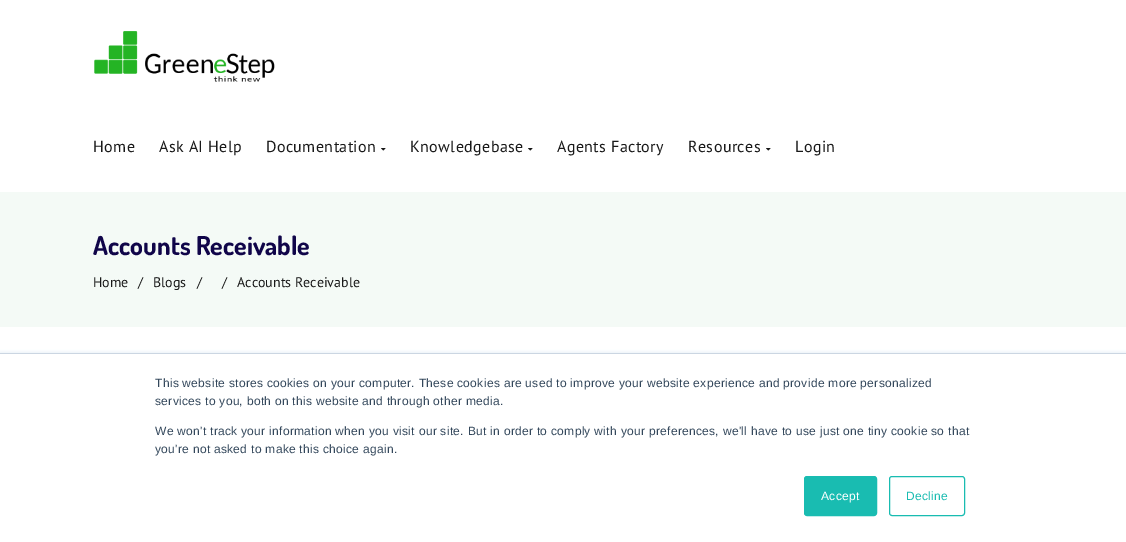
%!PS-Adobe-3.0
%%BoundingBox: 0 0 1126 542
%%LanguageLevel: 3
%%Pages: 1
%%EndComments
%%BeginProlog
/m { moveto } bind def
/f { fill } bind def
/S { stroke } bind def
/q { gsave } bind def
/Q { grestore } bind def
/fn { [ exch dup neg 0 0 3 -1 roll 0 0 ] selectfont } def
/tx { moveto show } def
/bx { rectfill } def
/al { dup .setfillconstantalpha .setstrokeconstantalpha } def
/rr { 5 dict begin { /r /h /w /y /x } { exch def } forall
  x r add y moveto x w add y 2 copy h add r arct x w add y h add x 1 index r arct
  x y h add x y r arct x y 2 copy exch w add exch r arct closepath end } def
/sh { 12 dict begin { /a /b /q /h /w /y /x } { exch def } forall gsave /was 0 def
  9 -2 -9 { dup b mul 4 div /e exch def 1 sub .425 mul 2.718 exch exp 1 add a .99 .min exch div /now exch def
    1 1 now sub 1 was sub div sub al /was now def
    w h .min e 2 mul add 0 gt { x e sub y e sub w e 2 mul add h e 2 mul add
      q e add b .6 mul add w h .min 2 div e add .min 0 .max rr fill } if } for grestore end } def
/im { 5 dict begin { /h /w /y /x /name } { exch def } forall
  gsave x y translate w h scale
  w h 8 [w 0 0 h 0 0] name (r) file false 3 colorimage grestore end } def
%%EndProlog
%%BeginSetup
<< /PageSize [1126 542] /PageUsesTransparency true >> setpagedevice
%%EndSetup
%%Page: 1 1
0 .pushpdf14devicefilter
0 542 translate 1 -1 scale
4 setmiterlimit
1 setgray
0 0 1126 542 bx
(image0.raw) 94 31 181 51 im
/PTSans-Regular 16 fn
0.098 setgray
93 152 m 0.4 0 (Home) ashow
159 152 m 0.4 0 (Ask AI Help) ashow
266 152 m 0.4 0 (Documentation) ashow
(image1.raw) 381 148 5 3 im
410 152 m 0.4 0 (Knowledgebase) ashow
(image1.raw) 528 148 5 3 im
557 152 m 0.4 0 (Agents Factory) ashow
688 152 m 0.4 0 (Resources) ashow
(image1.raw) 766 148 5 3 im
795 152 m 0.4 0 (Login) ashow
0.957 0.98 0.965 setrgbcolor
0 192 1126 135 bx
/Dosis-Bold 26 fn
0.063 0.02 0.286 setrgbcolor
(Accounts Receivable) 93 255 tx
/PTSans-Regular 14 fn
0.098 setgray
(Home) 93 287 tx
(/) 138 287 tx
(Blogs) 153 287 tx
(/) 197 287 tx
(/) 222 287 tx
(Accounts Receivable) 237 287 tx
0.918 0.941 0.965 setrgbcolor
0 352 1126 189 0 1.5 1 sh
1 setgray
0 354 1126 188 bx
0.796 0.839 0.886 setrgbcolor
0 353 1126 1 bx
/LiberationSans-Regular 12 fn
0.2 0.278 0.357 setrgbcolor
155 387 m 0.3 0 (This website stores cookies on your computer. These cookies are used to improve your website experience and provide more personalized) ashow
155 405 m 0.3 0 (services to you, both on this website and through other media.) ashow
155 435 m 0.3 0 (We won't track your information when you visit our site. But in order to comply with your preferences, we'll have to use just one tiny cookie so that) ashow
155 453 m 0.3 0 (you're not asked to make this choice again.) ashow
0.098 0.737 0.694 setrgbcolor
804.5 476.5 72 39 2.5 rr q f Q
S
1 setgray
821 500 m 0.3 0 (Accept) ashow
0.098 0.737 0.694 setrgbcolor
889.5 476.5 75 39 2.5 rr S
906 500 m 0.3 0 (Decline) ashow
.poppdf14devicefilter showpage
%%EOF
